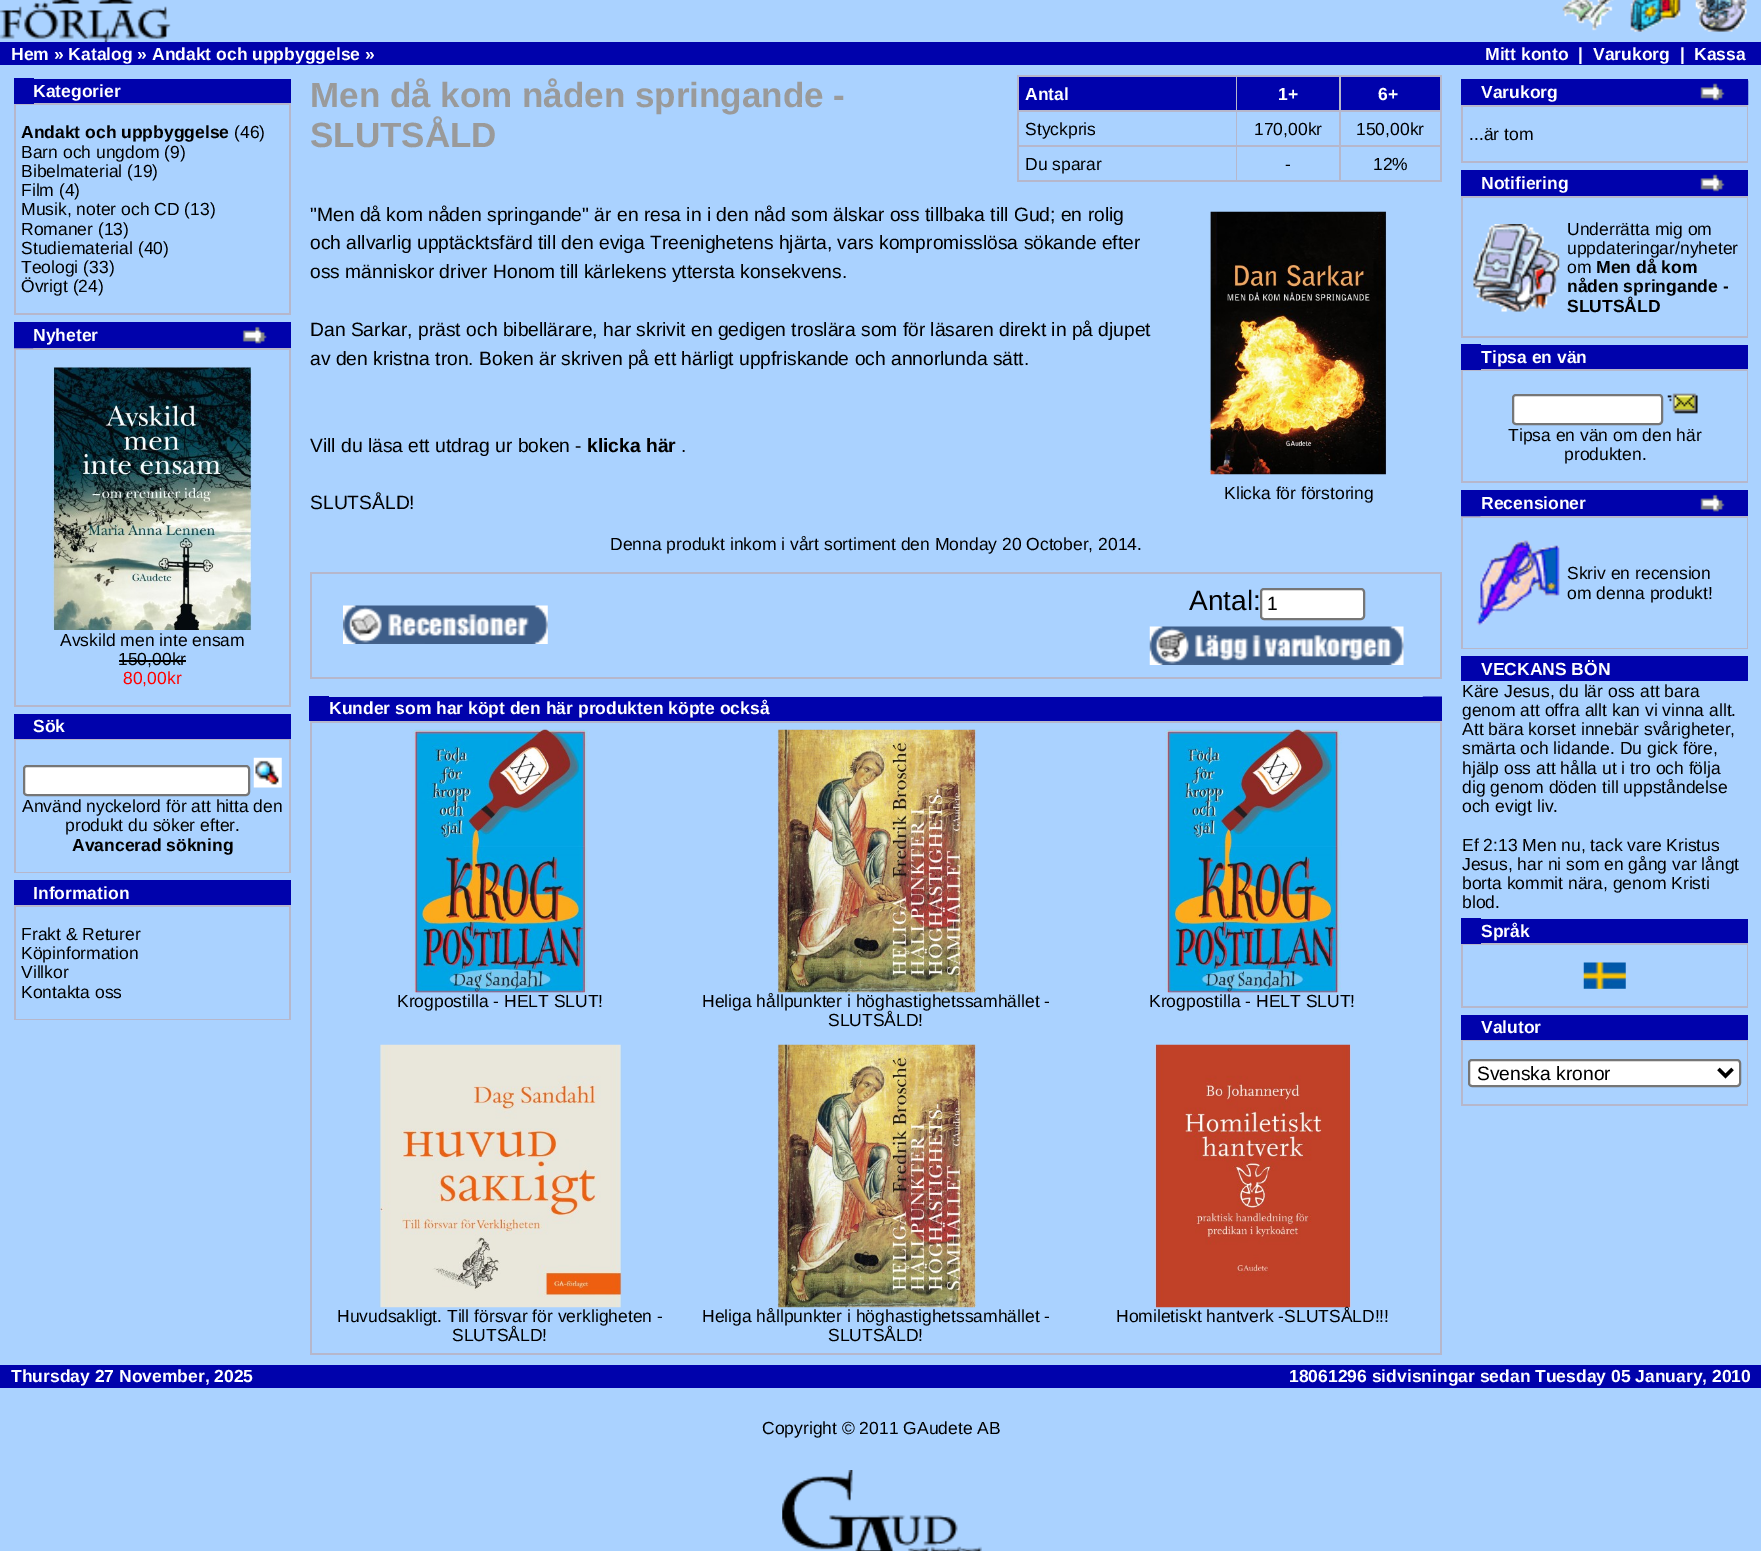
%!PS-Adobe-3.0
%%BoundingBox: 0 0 1761 1551
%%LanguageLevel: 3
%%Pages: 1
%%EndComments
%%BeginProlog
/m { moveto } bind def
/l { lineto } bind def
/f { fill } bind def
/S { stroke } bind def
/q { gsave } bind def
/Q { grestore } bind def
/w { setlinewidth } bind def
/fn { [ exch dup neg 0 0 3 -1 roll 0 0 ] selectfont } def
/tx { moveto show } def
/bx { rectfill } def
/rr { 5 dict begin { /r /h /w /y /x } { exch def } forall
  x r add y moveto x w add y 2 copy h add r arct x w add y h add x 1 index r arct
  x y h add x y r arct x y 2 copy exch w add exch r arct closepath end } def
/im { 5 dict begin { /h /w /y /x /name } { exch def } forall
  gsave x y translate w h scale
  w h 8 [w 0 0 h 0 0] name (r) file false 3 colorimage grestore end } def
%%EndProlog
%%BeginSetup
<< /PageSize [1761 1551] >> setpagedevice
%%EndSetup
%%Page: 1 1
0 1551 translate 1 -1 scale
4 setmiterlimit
0.667 0.824 1 setrgbcolor
0 0 1761 1551 bx
(image0.raw) 0 0 171 42 im
(image1.raw) 1562 0 52 31 im
(image2.raw) 1630 0 51 32 im
(image3.raw) 1695 0 52 32 im
0 0.008 0.675 setrgbcolor
0 42 1761 23 bx
/LiberationSans-Bold 17.5 fn
1 setgray
(Hem » Katalog » Andakt och uppbyggelse ») 11 60 tx
(Mitt konto) 1485 60 tx
(|) 1578 60 tx
(Varukorg) 1593 60 tx
(|) 1680 60 tx
(Kassa) 1694 60 tx
0.714 0.718 0.796 setrgbcolor
14 103 277 212 bx
0 0.008 0.675 setrgbcolor
14 78 20 26 bx
34 79 257 24 bx
1 setgray
(Kategorier) 33 97 tx
0.667 0.824 1 setrgbcolor
16 105 273 208 bx
0 setgray
(Andakt och uppbyggelse) 21 138 tx
/LiberationSans-Regular 17.5 fn
(\(46\)) 234 138 tx
(Barn och ungdom \(9\)) 21 158 tx
(Bibelmaterial \(19\)) 21 177 tx
(Film \(4\)) 21 196 tx
(Musik, noter och CD \(13\)) 21 215 tx
(Romaner \(13\)) 21 235 tx
(Studiematerial \(40\)) 21 254 tx
(Teologi \(33\)) 21 273 tx
(Övrigt \(24\)) 21 292 tx
0 0.008 0.675 setrgbcolor
14 322 277 26 bx
0.714 0.718 0.796 setrgbcolor
14 348 277 359 bx
(image4.raw) 14 348 20 1 im
/LiberationSans-Bold 17.5 fn
1 setgray
(Nyheter) 33 341 tx
(image5.raw) 242 326 25 18 im
0.667 0.824 1 setrgbcolor
16 350 273 355 bx
(image6.raw) 52 367 200 263 im
/LiberationSans-Regular 17.5 fn
0 setgray
(Avskild men inte ensam) 60 646 tx
(150,00kr) 118 665 tx
119 660 67 2 bx
1 0 0 setrgbcolor
(80,00kr) 123 684 tx
0 0.008 0.675 setrgbcolor
14 714 277 25 bx
/LiberationSans-Bold 17.5 fn
1 setgray
(Sök) 33 732 tx
0.714 0.718 0.796 setrgbcolor
14 739 277 134 bx
0.667 0.824 1 setrgbcolor
16 740 273 132 bx
1 setgray
24 766 225 29 3 rr q f Q
0.463 setgray
2 w
S
(image7.raw) 253 757 29 31 im
/LiberationSans-Regular 17.5 fn
0 setgray
(Använd nyckelord för att hitta den) 22 812 tx
(produkt du söker efter.) 65 831 tx
/LiberationSans-Bold 17.5 fn
(Avancerad sökning) 72 851 tx
0 0.008 0.675 setrgbcolor
14 880 277 25 bx
1 setgray
(Information) 33 899 tx
0.714 0.718 0.796 setrgbcolor
14 905 277 115 bx
0.667 0.824 1 setrgbcolor
16 907 273 112 bx
/LiberationSans-Regular 17.5 fn
0 setgray
(Frakt & Returer) 21 940 tx
(Köpinformation) 21 959 tx
(Villkor) 21 978 tx
(Kontakta oss) 21 998 tx
/LiberationSans-Bold 35 fn
0.604 setgray
(Men då kom nåden springande -) 310 107 tx
(SLUTSÅLD) 310 147 tx
0.714 0.718 0.796 setrgbcolor
1017 75 425 107 bx
0 0.008 0.675 setrgbcolor
1019 77 217 33 bx
/LiberationSans-Bold 17.5 fn
1 setgray
(Antal) 1025 100 tx
0 0.008 0.675 setrgbcolor
1237 77 102 33 bx
1 setgray
(1+) 1278 100 tx
0 0.008 0.675 setrgbcolor
1341 77 99 33 bx
1 setgray
(6+) 1378 100 tx
0.667 0.824 1 setrgbcolor
1019 112 217 33 bx
/LiberationSans-Regular 17.5 fn
0 setgray
(Styckpris) 1025 135 tx
0.667 0.824 1 setrgbcolor
1237 112 102 33 bx
0 setgray
(170,00kr) 1254 135 tx
0.667 0.824 1 setrgbcolor
1341 112 99 33 bx
0 setgray
(150,00kr) 1356 135 tx
0.667 0.824 1 setrgbcolor
1019 147 217 33 bx
0 setgray
(Du sparar) 1025 170 tx
0.667 0.824 1 setrgbcolor
1237 147 102 33 bx
0 setgray
(-) 1285 170 tx
0.667 0.824 1 setrgbcolor
1341 147 99 33 bx
0 setgray
(12%) 1373 170 tx
/LiberationSans-Regular 19.25 fn
("Men då kom nåden springande" är en resa in i den nåd som älskar oss tillbaka till Gud; en rolig) 310 221 tx
(och allvarlig upptäcktsfärd till den eviga Treenighetens hjärta, vars kompromisslösa sökande efter) 310 249 tx
(oss människor driver Honom till kärlekens yttersta konsekvens.) 310 278 tx
(Dan Sarkar, präst och bibellärare, har skrivit en gedigen troslära som för läsaren direkt in på djupet) 310 336 tx
(av den kristna tron. Boken är skriven på ett härligt uppfriskande och annorlunda sätt.) 310 365 tx
(Vill du läsa ett utdrag ur boken -) 310 452 tx
/LiberationSans-Bold 19.25 fn
(klicka här) 587 452 tx
/LiberationSans-Regular 19.25 fn
(.) 681 452 tx
(SLUTSÅLD!) 310 509 tx
(image8.raw) 1209 211 178 264 im
/LiberationSans-Regular 17.5 fn
(Klicka för förstoring) 1224 499 tx
(Denna produkt inkom i vårt sortiment den Monday 20 October, 2014.) 610 550 tx
0.714 0.718 0.796 setrgbcolor
310 572 1132 107 bx
0.667 0.824 1 setrgbcolor
312 574 1128 103 bx
/LiberationSans-Regular 28 fn
0 setgray
(Antal:) 1189 610 tx
1 setgray
1261 589 103 30 3 rr q f Q
0.463 setgray
S
/LiberationSans-Regular 19.25 fn
0 setgray
(1) 1267 610 tx
(image9.raw) 1149 626 255 39 im
(image10.raw) 343 605 205 39 im
0 0.008 0.675 setrgbcolor
309 696 20 25 bx
(image11.raw) 1422 696 20 1 im
329 697 1113 24 bx
/LiberationSans-Bold 17.5 fn
1 setgray
(Kunder som har köpt den här produkten köpte också) 329 714 tx
0.714 0.718 0.796 setrgbcolor
310 721 1132 634 bx
0.667 0.824 1 setrgbcolor
312 723 1128 630 bx
(image12.raw) 411 729 179 264 im
/LiberationSans-Regular 17.5 fn
0 setgray
(Krogpostilla - HELT SLUT!) 397 1007 tx
(image13.raw) 777 729 200 264 im
(Heliga hållpunkter i höghastighetssamhället -) 702 1007 tx
(SLUTSÅLD!) 828 1026 tx
(image14.raw) 1164 729 178 264 im
(Krogpostilla - HELT SLUT!) 1149 1007 tx
(image15.raw) 379 1044 243 264 im
(Huvudsakligt. Till försvar för verkligheten -) 337 1322 tx
(SLUTSÅLD!) 452 1341 tx
(image13.raw) 777 1044 200 264 im
(Heliga hållpunkter i höghastighetssamhället -) 702 1322 tx
(SLUTSÅLD!) 828 1341 tx
(image16.raw) 1155 1044 196 264 im
(Homiletiskt hantverk -SLUTSÅLD!!!) 1116 1322 tx
0 0.008 0.675 setrgbcolor
1461 79 287 26 bx
/LiberationSans-Bold 17.5 fn
1 setgray
(Varukorg) 1481 98 tx
(image17.raw) 1700 83 25 18 im
(image18.raw) 1748 80 1 25 im
0.714 0.718 0.796 setrgbcolor
1461 105 287 58 bx
0.667 0.824 1 setrgbcolor
1463 107 284 54 bx
/LiberationSans-Regular 17.5 fn
0 setgray
(...är tom) 1469 140 tx
0 0.008 0.675 setrgbcolor
1461 170 287 26 bx
/LiberationSans-Bold 17.5 fn
1 setgray
(Notifiering) 1481 189 tx
(image17.raw) 1700 174 25 18 im
0.714 0.718 0.796 setrgbcolor
1461 196 287 142 bx
0.667 0.824 1 setrgbcolor
1463 198 284 138 bx
(image19.raw) 1473 224 87 88 im
/LiberationSans-Regular 17.5 fn
0 setgray
(Underrätta mig om) 1567 235 tx
(uppdateringar/nyheter) 1567 254 tx
(om) 1567 273 tx
/LiberationSans-Bold 17.5 fn
(Men då kom) 1596 273 tx
(nåden springande -) 1567 292 tx
(SLUTSÅLD) 1567 312 tx
0.714 0.718 0.796 setrgbcolor
1461 369 287 114 bx
0 0.008 0.675 setrgbcolor
1461 344 20 26 bx
1481 345 267 24 bx
1 setgray
(Tipsa en vän) 1481 363 tx
0.667 0.824 1 setrgbcolor
1463 371 284 110 bx
1 setgray
1513 395 149 29 3 rr q f Q
0.463 setgray
S
(image20.raw) 1667 393 31 21 im
/LiberationSans-Regular 17.5 fn
0 setgray
(Tipsa en vän om den här) 1508 441 tx
(produkten.) 1564 460 tx
0 0.008 0.675 setrgbcolor
1461 490 287 26 bx
0.714 0.718 0.796 setrgbcolor
1461 516 287 133 bx
(image21.raw) 1461 516 20 1 im
/LiberationSans-Bold 17.5 fn
1 setgray
(Recensioner) 1481 509 tx
(image22.raw) 1700 494 25 18 im
0.667 0.824 1 setrgbcolor
1463 518 284 130 bx
(image23.raw) 1476 540 84 86 im
/LiberationSans-Regular 17.5 fn
0 setgray
(Skriv en recension) 1567 579 tx
(om denna produkt!) 1567 599 tx
0 0.008 0.675 setrgbcolor
1461 656 287 25 bx
/LiberationSans-Bold 17.5 fn
1 setgray
(VECKANS BÖN) 1481 675 tx
/LiberationSans-Regular 17.5 fn
0 setgray
(Käre Jesus, du lär oss att bara) 1462 697 tx
(genom att offra allt kan vi vinna allt.) 1462 716 tx
(Att bära korset innebär svårigheter,) 1462 735 tx
(smärta och lidande. Du gick före,) 1462 754 tx
(hjälp oss att hålla ut i tro och följa) 1462 774 tx
(dig genom döden till uppståndelse) 1462 793 tx
(och evigt liv.) 1462 812 tx
(Ef 2:13 Men nu, tack vare Kristus) 1462 851 tx
(Jesus, har ni som en gång var långt) 1462 870 tx
(borta kommit nära, genom Kristi) 1462 889 tx
(blod.) 1462 908 tx
0.714 0.718 0.796 setrgbcolor
1461 943 287 65 bx
0 0.008 0.675 setrgbcolor
1461 918 20 26 bx
1481 919 267 24 bx
/LiberationSans-Bold 17.5 fn
1 setgray
(Språk) 1481 937 tx
0.667 0.824 1 setrgbcolor
1463 945 284 61 bx
(image24.raw) 1583 962 43 27 im
0 0.008 0.675 setrgbcolor
1461 1015 287 25 bx
1 setgray
(Valutor) 1481 1033 tx
0.714 0.718 0.796 setrgbcolor
1461 1040 287 66 bx
0.667 0.824 1 setrgbcolor
1463 1041 284 63 bx
1 setgray
1469 1060 271 26 3 rr q f Q
0.463 setgray
S
0 setgray
3.5 w
1718.5 1069 m 1725.5 1076 l 1732.5 1069 l S
/LiberationSans-Regular 19.25 fn
(Svenska kronor) 1477 1080 tx
0 0.008 0.675 setrgbcolor
0 1365 1761 23 bx
/LiberationSans-Bold 17.5 fn
1 setgray
(Thursday 27 November, 2025) 11 1382 tx
(18061296 sidvisningar sedan Tuesday 05 January, 2010) 1289 1382 tx
/LiberationSans-Regular 17.5 fn
0 setgray
(Copyright © 2011 GAudete AB) 762 1434 tx
(image25.raw) 782 1470 200 81 im
showpage
%%EOF
